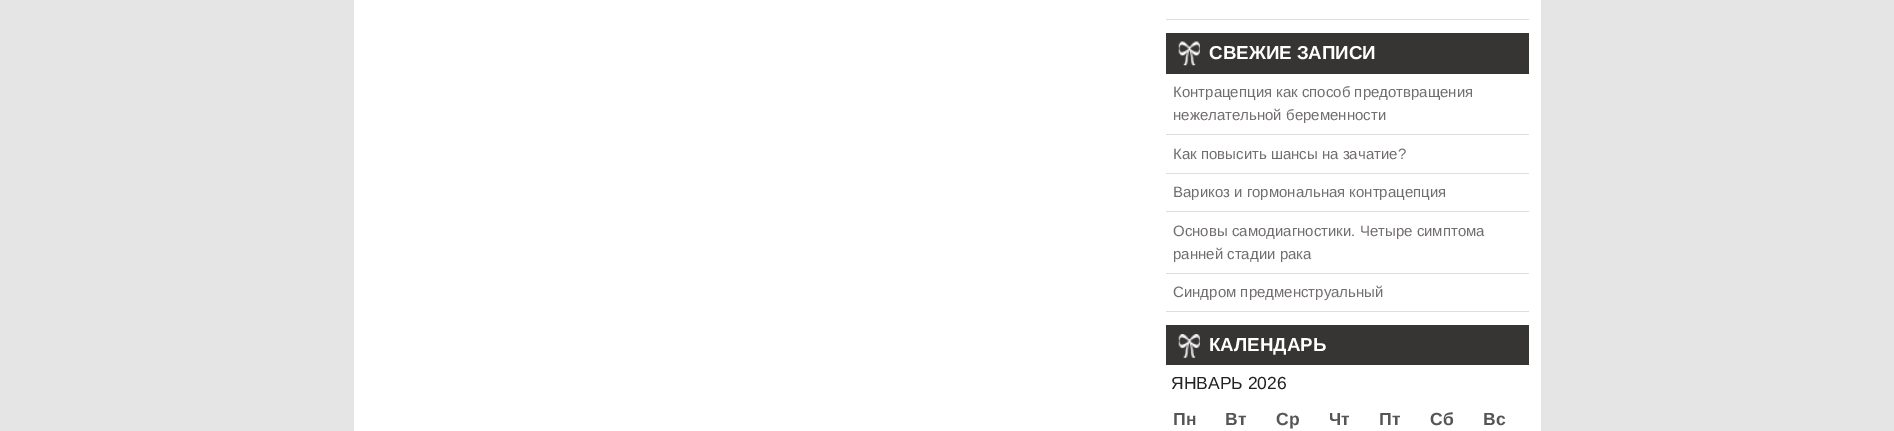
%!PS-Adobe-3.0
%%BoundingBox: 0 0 1894 431
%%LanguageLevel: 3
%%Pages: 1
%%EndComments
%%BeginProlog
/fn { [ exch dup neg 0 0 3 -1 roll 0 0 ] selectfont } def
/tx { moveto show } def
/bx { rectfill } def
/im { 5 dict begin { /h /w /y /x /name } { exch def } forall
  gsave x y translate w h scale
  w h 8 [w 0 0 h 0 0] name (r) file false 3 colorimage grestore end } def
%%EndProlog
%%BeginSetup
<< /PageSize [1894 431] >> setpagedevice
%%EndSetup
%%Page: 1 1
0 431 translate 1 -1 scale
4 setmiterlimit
0.902 0.898 0.898 setrgbcolor
0 0 1894 431 bx
1 setgray
354 0 1187 431 bx
0.867 setgray
1166 19 363 1 bx
0.216 0.204 0.204 setrgbcolor
1166 33 363 41 bx
(image0.raw) 1178 41 22 25 im
/LiberationSans-Bold 18.75 fn
1 setgray
(СВЕЖИЕ ЗАПИСИ) 1209 59 tx
0.867 setgray
1166 134 363 1 bx
/LiberationSans-Regular 15 fn
0.451 0.431 0.431 setrgbcolor
(Контрацепция как способ предотвращения) 1173 97 tx
(нежелательной беременности) 1173 120 tx
0.867 setgray
1166 173 363 1 bx
0.451 0.431 0.431 setrgbcolor
(Как повысить шансы на зачатие?) 1173 159 tx
0.867 setgray
1166 211 363 1 bx
0.451 0.431 0.431 setrgbcolor
(Варикоз и гормональная контрацепция) 1173 197 tx
0.867 setgray
1166 273 363 1 bx
0.451 0.431 0.431 setrgbcolor
(Основы самодиагностики. Четыре симптома) 1173 236 tx
(ранней стадии рака) 1173 259 tx
0.867 setgray
1166 311 363 1 bx
0.451 0.431 0.431 setrgbcolor
(Синдром предменструальный) 1173 297 tx
0.216 0.204 0.204 setrgbcolor
1166 325 363 40 bx
(image1.raw) 1178 334 22 24 im
/LiberationSans-Bold 18.75 fn
1 setgray
(КАЛЕНДАРЬ) 1209 351 tx
/LiberationSans-Regular 17.5 fn
0.133 setgray
(ЯНВАРЬ 2026) 1171 389 tx
/LiberationSans-Bold 17.5 fn
0.333 setgray
(Пн) 1173 425 tx
(Вт) 1225 425 tx
(Ср) 1276 425 tx
(Чт) 1329 425 tx
(Пт) 1379 425 tx
(Сб) 1430 425 tx
(Вс) 1483 425 tx
showpage
%%EOF
